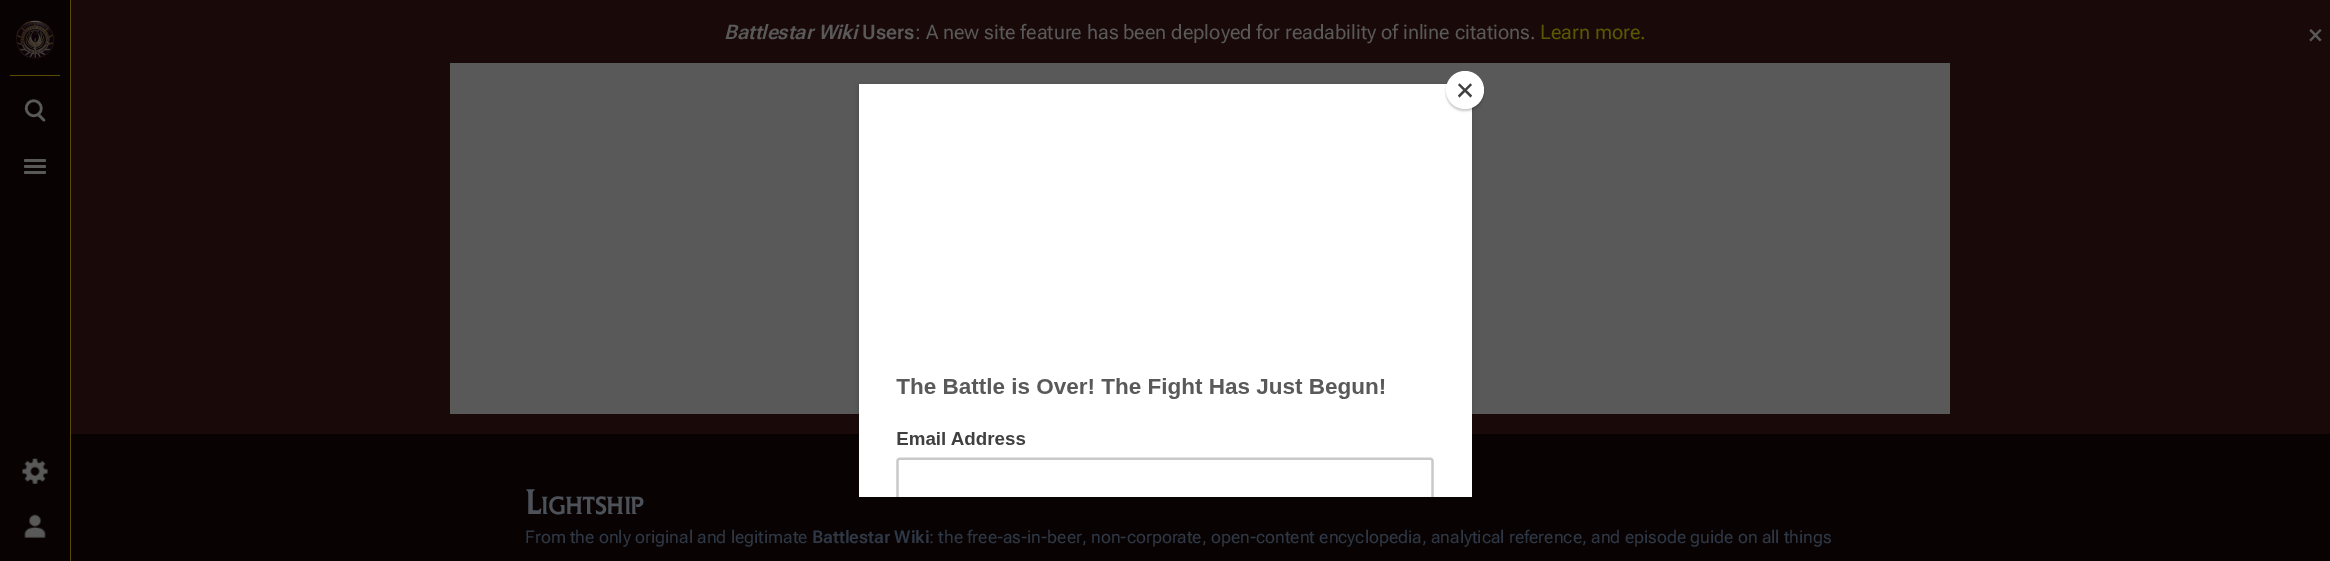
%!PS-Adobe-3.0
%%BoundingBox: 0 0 2330 561
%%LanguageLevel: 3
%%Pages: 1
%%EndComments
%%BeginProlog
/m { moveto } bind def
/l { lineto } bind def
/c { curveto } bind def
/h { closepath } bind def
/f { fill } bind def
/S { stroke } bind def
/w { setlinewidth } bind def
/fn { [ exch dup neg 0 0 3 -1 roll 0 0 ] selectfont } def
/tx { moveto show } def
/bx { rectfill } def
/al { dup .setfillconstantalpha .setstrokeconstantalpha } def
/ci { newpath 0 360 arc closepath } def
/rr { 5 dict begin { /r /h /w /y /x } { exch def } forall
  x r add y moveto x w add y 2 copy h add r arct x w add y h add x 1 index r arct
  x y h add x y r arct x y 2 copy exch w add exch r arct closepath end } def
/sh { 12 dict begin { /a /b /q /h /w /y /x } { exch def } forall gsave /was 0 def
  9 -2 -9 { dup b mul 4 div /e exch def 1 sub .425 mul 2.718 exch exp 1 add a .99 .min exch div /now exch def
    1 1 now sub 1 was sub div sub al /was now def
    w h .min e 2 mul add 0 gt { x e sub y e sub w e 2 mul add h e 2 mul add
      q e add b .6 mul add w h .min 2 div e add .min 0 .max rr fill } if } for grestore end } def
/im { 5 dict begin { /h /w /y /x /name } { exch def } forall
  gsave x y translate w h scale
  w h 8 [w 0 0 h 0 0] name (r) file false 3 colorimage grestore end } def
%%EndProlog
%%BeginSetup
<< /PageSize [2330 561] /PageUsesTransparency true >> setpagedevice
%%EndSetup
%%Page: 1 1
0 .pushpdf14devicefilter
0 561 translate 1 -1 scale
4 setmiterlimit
0.031 0.012 0.008 setrgbcolor
0 0 2330 561 bx
0.349 0.294 0 setrgbcolor
70 0 1 561 bx
10 75 50 1 bx
(image0.raw) 15 20 40 39 im
0.349 setgray
37.5 114 m 39 112.5 41.5 116 42 116.5 c 43 117.5 46 119.5 45 121 c 43.5 122.5 41 119 40.5 118.5 c 39.5 117.5 36.5 115.5 37.5 114 c h f
2.5 w
28.5 103 m 35.5 96 46 106.5 39 113.5 c 32 120.5 21.5 110 28.5 103 c h S
24 159 22 3 1.5 rr f
24 165 22 3 1.5 rr f
24 171 22 3 1.5 rr f
(image1.raw) 22 458 26 26 im
(image2.raw) 24 514 22 24 im
0.098 0.035 0.035 setrgbcolor
71 0 2259 434 bx
/RobotoFlex-SemiBoldItalic 20 fn
0.349 setgray
(Battlestar Wiki) 724 39 tx
/RobotoFlex-SemiBold 20 fn
(Users) 862 39 tx
/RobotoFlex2-Regular 20 fn
(: A new site feature has been deployed for readability of inline citations.) 915 39 tx
0.349 0.349 0 setrgbcolor
(Learn more.) 1540 39 tx
0.349 setgray
450 63 1500 351 bx
/RobotoFlex-Regular 30 fn
(×) 2308 45 tx
/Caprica-Bold 35 fn
0.302 0.318 0.349 setrgbcolor
(L) 525 514 tx
/Caprica-Bold 24.5 fn
(IGHTSHIP) 541 514 tx
/RobotoFlex-Regular 17.5 fn
0.184 0.22 0.278 setrgbcolor
(From the only original and legitimate) 525 543 tx
/RobotoFlex2-SemiBold 17.5 fn
(Battlestar Wiki) 812 543 tx
/RobotoFlex-Regular 17.5 fn
(: the free-as-in-beer, non-corporate, open-content encyclopedia, analytical reference, and episode guide on all things) 929 543 tx
0 setgray
859 86 612 413 0 2.5 0.2 sh
(image3.raw) 859 84 613 413 im
1446 74 38 37 18.5 1 0.2 sh
1 setgray
1465 90 19 ci f
0.255 setgray
1470.5 83.5 m 1472 85 l 1459.5 97.5 l 1458 95.5 l h f
1458 85 m 1459.5 83.5 l 1472 95.5 l 1470.5 97.5 l h f
.poppdf14devicefilter showpage
%%EOF
